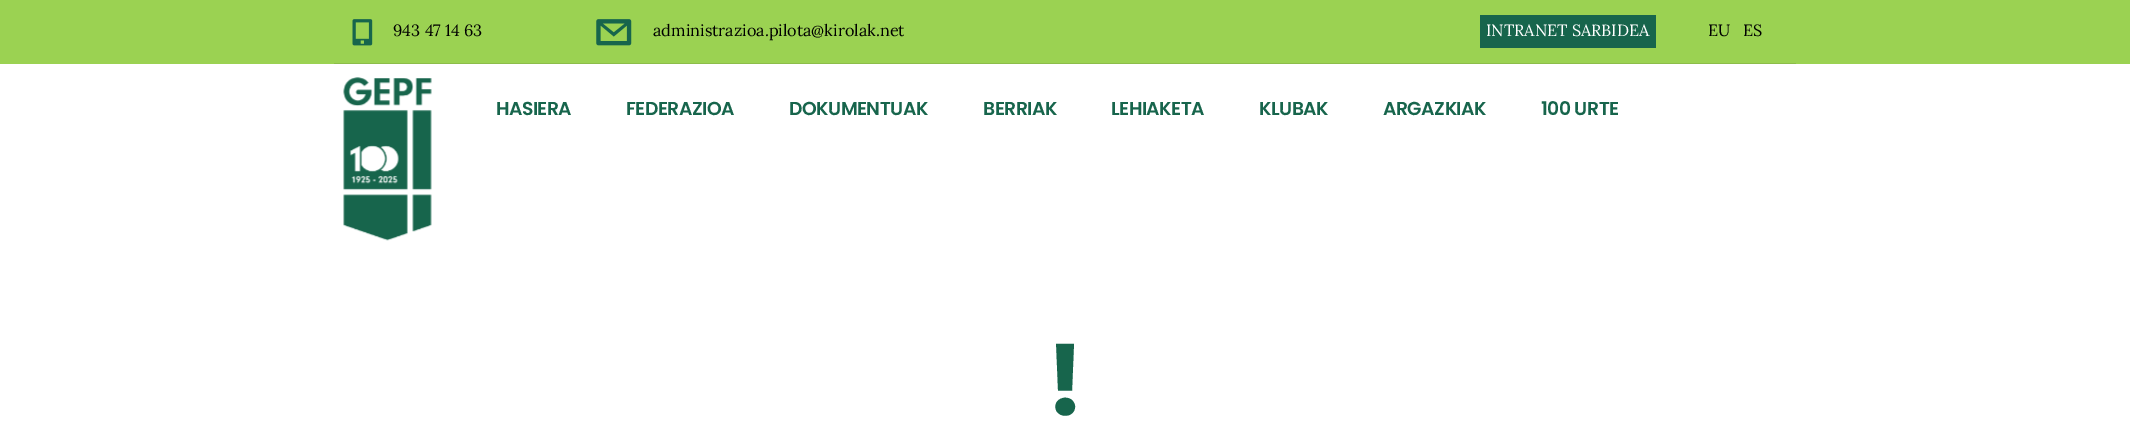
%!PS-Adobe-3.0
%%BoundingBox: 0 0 2130 440
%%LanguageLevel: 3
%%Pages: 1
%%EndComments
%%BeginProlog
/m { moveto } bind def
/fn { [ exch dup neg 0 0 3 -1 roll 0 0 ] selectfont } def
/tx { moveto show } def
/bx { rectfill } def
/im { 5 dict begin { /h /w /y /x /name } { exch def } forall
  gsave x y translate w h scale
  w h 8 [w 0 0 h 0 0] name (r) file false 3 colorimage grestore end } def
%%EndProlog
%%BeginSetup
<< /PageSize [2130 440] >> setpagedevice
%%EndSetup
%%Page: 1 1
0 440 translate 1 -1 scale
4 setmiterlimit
1 setgray
0 0 2130 440 bx
0.608 0.824 0.322 setrgbcolor
0 0 2130 64 bx
0.549 0.741 0.29 setrgbcolor
334 63 1462 1 bx
(image0.raw) 352 19 21 27 im
/Lora-Regular 16.25 fn
0 setgray
(943 47 14 63) 393 36 tx
(image1.raw) 596 19 36 27 im
(administrazioa.pilota@kirolak.net) 653 36 tx
0.09 0.396 0.298 setrgbcolor
1480 15 176 33 bx
1 setgray
(INTRANET SARBIDEA) 1486 36 tx
0 setgray
(EU) 1708 36 tx
(ES) 1743 36 tx
(image2.raw) 343 77 89 164 im
/Poppins-SemiBold 18.75 fn
0.09 0.396 0.298 setrgbcolor
496 115 m -0.5 0 (HASIERA) ashow
626 115 m -0.5 0 (FEDERAZIOA) ashow
789 115 m -0.5 0 (DOKUMENTUAK) ashow
983 115 m -0.5 0 (BERRIAK) ashow
1111 115 m -0.5 0 (LEHIAKETA) ashow
1259 115 m -0.5 0 (KLUBAK) ashow
1383 115 m -0.5 0 (ARGAZKIAK) ashow
1541 115 m -0.5 0 (100 URTE) ashow
/Poppins-Bold 98 fn
(!) 1046 415 tx
showpage
%%EOF
